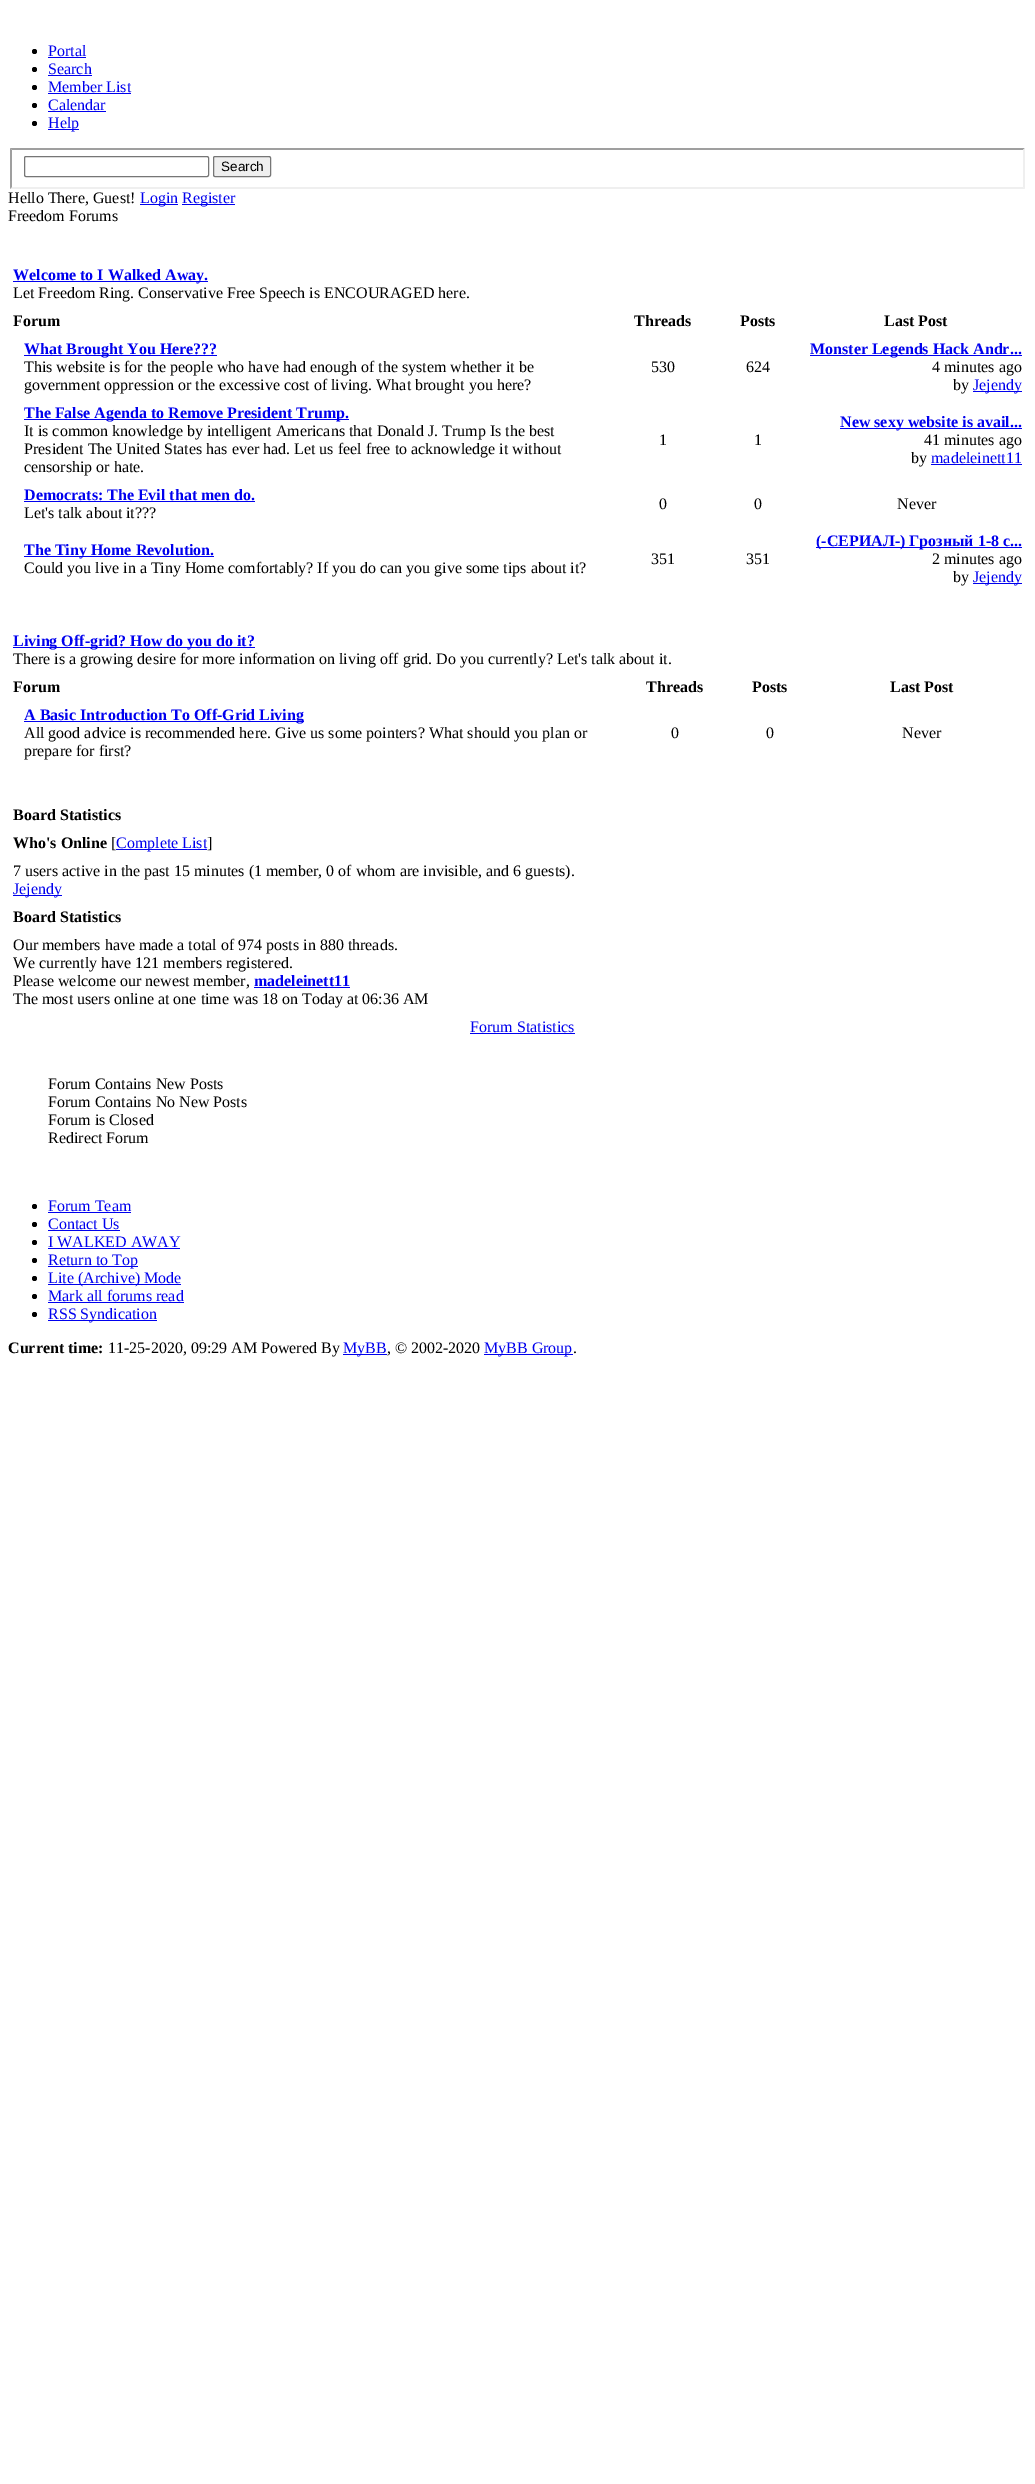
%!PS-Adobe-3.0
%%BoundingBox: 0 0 1035 2484
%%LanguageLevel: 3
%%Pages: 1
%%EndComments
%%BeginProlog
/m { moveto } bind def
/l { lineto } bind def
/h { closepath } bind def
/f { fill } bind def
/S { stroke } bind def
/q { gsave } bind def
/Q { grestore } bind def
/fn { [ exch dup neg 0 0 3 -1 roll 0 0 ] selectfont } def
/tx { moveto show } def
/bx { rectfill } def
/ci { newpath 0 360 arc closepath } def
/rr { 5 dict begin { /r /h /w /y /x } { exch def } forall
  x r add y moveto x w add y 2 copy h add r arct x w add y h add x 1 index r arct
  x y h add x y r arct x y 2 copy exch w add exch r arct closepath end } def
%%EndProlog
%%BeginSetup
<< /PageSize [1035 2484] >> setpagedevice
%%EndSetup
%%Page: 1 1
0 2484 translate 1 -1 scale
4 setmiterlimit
1 setgray
0 0 1035 2484 bx
0 setgray
34.5 51.5 2.5 ci f
/LiberationSerif-Regular 16 fn
0 0 0.933 setrgbcolor
(Portal) 48 56 tx
48 57 38 1 bx
0 setgray
34.5 69.5 2.5 ci f
0 0 0.933 setrgbcolor
(Search) 48 74 tx
48 75 44 1 bx
0 setgray
34.5 87.5 2.5 ci f
0 0 0.933 setrgbcolor
(Member List) 48 92 tx
48 93 83 1 bx
0 setgray
34.5 105.5 2.5 ci f
0 0 0.933 setrgbcolor
(Calendar) 48 110 tx
48 111 58 1 bx
0 setgray
34.5 123.5 2.5 ci f
0 0 0.933 setrgbcolor
48 129 31 1 bx
(Help) 48 128 tx
0.624 setgray
10 148 m 1025 148 l 1023 150 l 12 150 l h f
0.937 setgray
1025 148 m 1025 189 l 1023 187 l 1023 150 l h f
1025 189 m 10 189 l 12 187 l 1023 187 l h f
0.624 setgray
10 189 m 10 148 l 12 150 l 12 187 l h f
0.463 setgray
24.5 156.5 184 20 1.5 rr S
0.937 setgray
213.5 156.5 57 20 1.5 rr q f Q
0.463 setgray
S
/LiberationSans-Regular 13.5 fn
0 setgray
(Search) 221 171 tx
/LiberationSerif-Regular 16 fn
(Hello There, Guest!) 8 203 tx
0 0 0.933 setrgbcolor
140 204 38 1 bx
(Login) 140 203 tx
182 204 53 1 bx
(Register) 182 203 tx
0 setgray
(Freedom Forums) 8 221 tx
0 0 0.933 setrgbcolor
13 281 195 1 bx
/LiberationSerif-Bold 16 fn
(Welcome to I Walked Away.) 13 280 tx
/LiberationSerif-Regular 16 fn
0 setgray
(Let Freedom Ring. Conservative Free Speech is ENCOURAGED here.) 13 298 tx
/LiberationSerif-Bold 16 fn
(Forum) 13 326 tx
(Threads) 634 326 tx
(Posts) 740 326 tx
(Last Post) 884 326 tx
0 0 0.933 setrgbcolor
24 355 193 1 bx
(What Brought You Here???) 24 354 tx
/LiberationSerif-Regular 16 fn
0 setgray
(This website is for the people who have had enough of the system whether it be) 24 372 tx
(government oppression or the excessive cost of living. What brought you here?) 24 390 tx
(530) 651 372 tx
(624) 746 372 tx
0 0 0.933 setrgbcolor
810 355 212 1 bx
/LiberationSerif-Bold 16 fn
(Monster Legends Hack Andr...) 810 354 tx
/LiberationSerif-Regular 16 fn
0 setgray
(4 minutes ago) 932 372 tx
(by) 953 390 tx
0 0 0.933 setrgbcolor
973 391 49 1 bx
(Jejendy) 973 390 tx
24 419 325 1 bx
/LiberationSerif-Bold 16 fn
(The False Agenda to Remove President Trump.) 24 418 tx
/LiberationSerif-Regular 16 fn
0 setgray
(It is common knowledge by intelligent Americans that Donald J. Trump Is the best) 24 436 tx
(President The United States has ever had. Let us feel free to acknowledge it without) 24 454 tx
(censorship or hate.) 24 472 tx
(1) 659 445 tx
(1) 754 445 tx
0 0 0.933 setrgbcolor
840 428 182 1 bx
/LiberationSerif-Bold 16 fn
(New sexy website is avail...) 840 427 tx
/LiberationSerif-Regular 16 fn
0 setgray
(41 minutes ago) 924 445 tx
(by) 911 463 tx
0 0 0.933 setrgbcolor
931 464 91 1 bx
(madeleinett11) 931 463 tx
/LiberationSerif-Bold 16 fn
(Democrats: The Evil that men do.) 24 500 tx
24 501 231 1 bx
/LiberationSerif-Regular 16 fn
0 setgray
(Let's talk about it???) 24 518 tx
(0) 659 509 tx
(0) 754 509 tx
(Never) 897 509 tx
0 0 0.933 setrgbcolor
24 556 190 1 bx
/LiberationSerif-Bold 16 fn
(The Tiny Home Revolution.) 24 555 tx
/LiberationSerif-Regular 16 fn
0 setgray
(Could you live in a Tiny Home comfortably? If you do can you give some tips about it?) 24 573 tx
(351) 651 564 tx
(351) 746 564 tx
0 0 0.933 setrgbcolor
816 547 206 1 bx
/LiberationSerif-Bold 16 fn
(\(-СЕРИАЛ-\) Грозный 1-8 с...) 816 546 tx
/LiberationSerif-Regular 16 fn
0 setgray
(2 minutes ago) 932 564 tx
(by) 953 582 tx
0 0 0.933 setrgbcolor
973 583 49 1 bx
(Jejendy) 973 582 tx
13 647 242 1 bx
/LiberationSerif-Bold 16 fn
(Living Off-grid? How do you do it?) 13 646 tx
/LiberationSerif-Regular 16 fn
0 setgray
(There is a growing desire for more information on living off grid. Do you currently? Let's talk about it.) 13 664 tx
/LiberationSerif-Bold 16 fn
(Forum) 13 692 tx
(Threads) 646 692 tx
(Posts) 752 692 tx
(Last Post) 890 692 tx
0 0 0.933 setrgbcolor
24 721 280 1 bx
(A Basic Introduction To Off-Grid Living) 24 720 tx
/LiberationSerif-Regular 16 fn
0 setgray
(All good advice is recommended here. Give us some pointers? What should you plan or) 24 738 tx
(prepare for first?) 24 756 tx
(0) 671 738 tx
(0) 766 738 tx
(Never) 902 738 tx
/LiberationSerif-Bold 16 fn
(Board Statistics) 13 820 tx
(Who's Online) 13 848 tx
/LiberationSerif-Regular 16 fn
([) 111 848 tx
0 0 0.933 setrgbcolor
116 849 91 1 bx
(Complete List) 116 848 tx
0 setgray
(]) 207 848 tx
(7 users active in the past 15 minutes \(1 member, 0 of whom are invisible, and 6 guests\).) 13 876 tx
0 0 0.933 setrgbcolor
13 895 49 1 bx
(Jejendy) 13 894 tx
/LiberationSerif-Bold 16 fn
0 setgray
(Board Statistics) 13 922 tx
/LiberationSerif-Regular 16 fn
(Our members have made a total of 974 posts in 880 threads.) 13 950 tx
(We currently have 121 members registered.) 13 968 tx
(Please welcome our newest member,) 13 986 tx
/LiberationSerif-Bold 16 fn
0 0 0.933 setrgbcolor
(madeleinett11) 254 986 tx
254 987 96 1 bx
/LiberationSerif-Regular 16 fn
0 setgray
(The most users online at one time was 18 on Today at 06:36 AM) 13 1004 tx
0 0 0.933 setrgbcolor
(Forum Statistics) 470 1032 tx
470 1033 105 1 bx
0 setgray
(Forum Contains New Posts) 48 1089 tx
(Forum Contains No New Posts) 48 1107 tx
(Forum is Closed) 48 1125 tx
(Redirect Forum) 48 1143 tx
34.5 1206.5 2.5 ci f
0 0 0.933 setrgbcolor
(Forum Team) 48 1211 tx
48 1212 83 1 bx
0 setgray
34.5 1224.5 2.5 ci f
0 0 0.933 setrgbcolor
(Contact Us) 48 1229 tx
48 1230 72 1 bx
0 setgray
34.5 1242.5 2.5 ci f
0 0 0.933 setrgbcolor
(I WALKED AWAY) 48 1247 tx
48 1248 132 1 bx
0 setgray
34.5 1260.5 2.5 ci f
0 0 0.933 setrgbcolor
48 1266 90 1 bx
(Return to Top) 48 1265 tx
0 setgray
34.5 1278.5 2.5 ci f
0 0 0.933 setrgbcolor
48 1284 133 1 bx
(Lite \(Archive\) Mode) 48 1283 tx
0 setgray
34.5 1296.5 2.5 ci f
0 0 0.933 setrgbcolor
(Mark all forums read) 48 1301 tx
48 1302 136 1 bx
0 setgray
34.5 1314.5 2.5 ci f
0 0 0.933 setrgbcolor
48 1320 109 1 bx
(RSS Syndication) 48 1319 tx
/LiberationSerif-Bold 16 fn
0 setgray
(Current time:) 8 1353 tx
/LiberationSerif-Regular 16 fn
(11-25-2020, 09:29 AM Powered By) 108 1353 tx
0 0 0.933 setrgbcolor
343 1354 44 1 bx
(MyBB) 343 1353 tx
0 setgray
(, © 2002-2020) 387 1353 tx
0 0 0.933 setrgbcolor
484 1354 89 1 bx
(MyBB Group) 484 1353 tx
0 setgray
(.) 573 1353 tx
showpage
%%EOF
